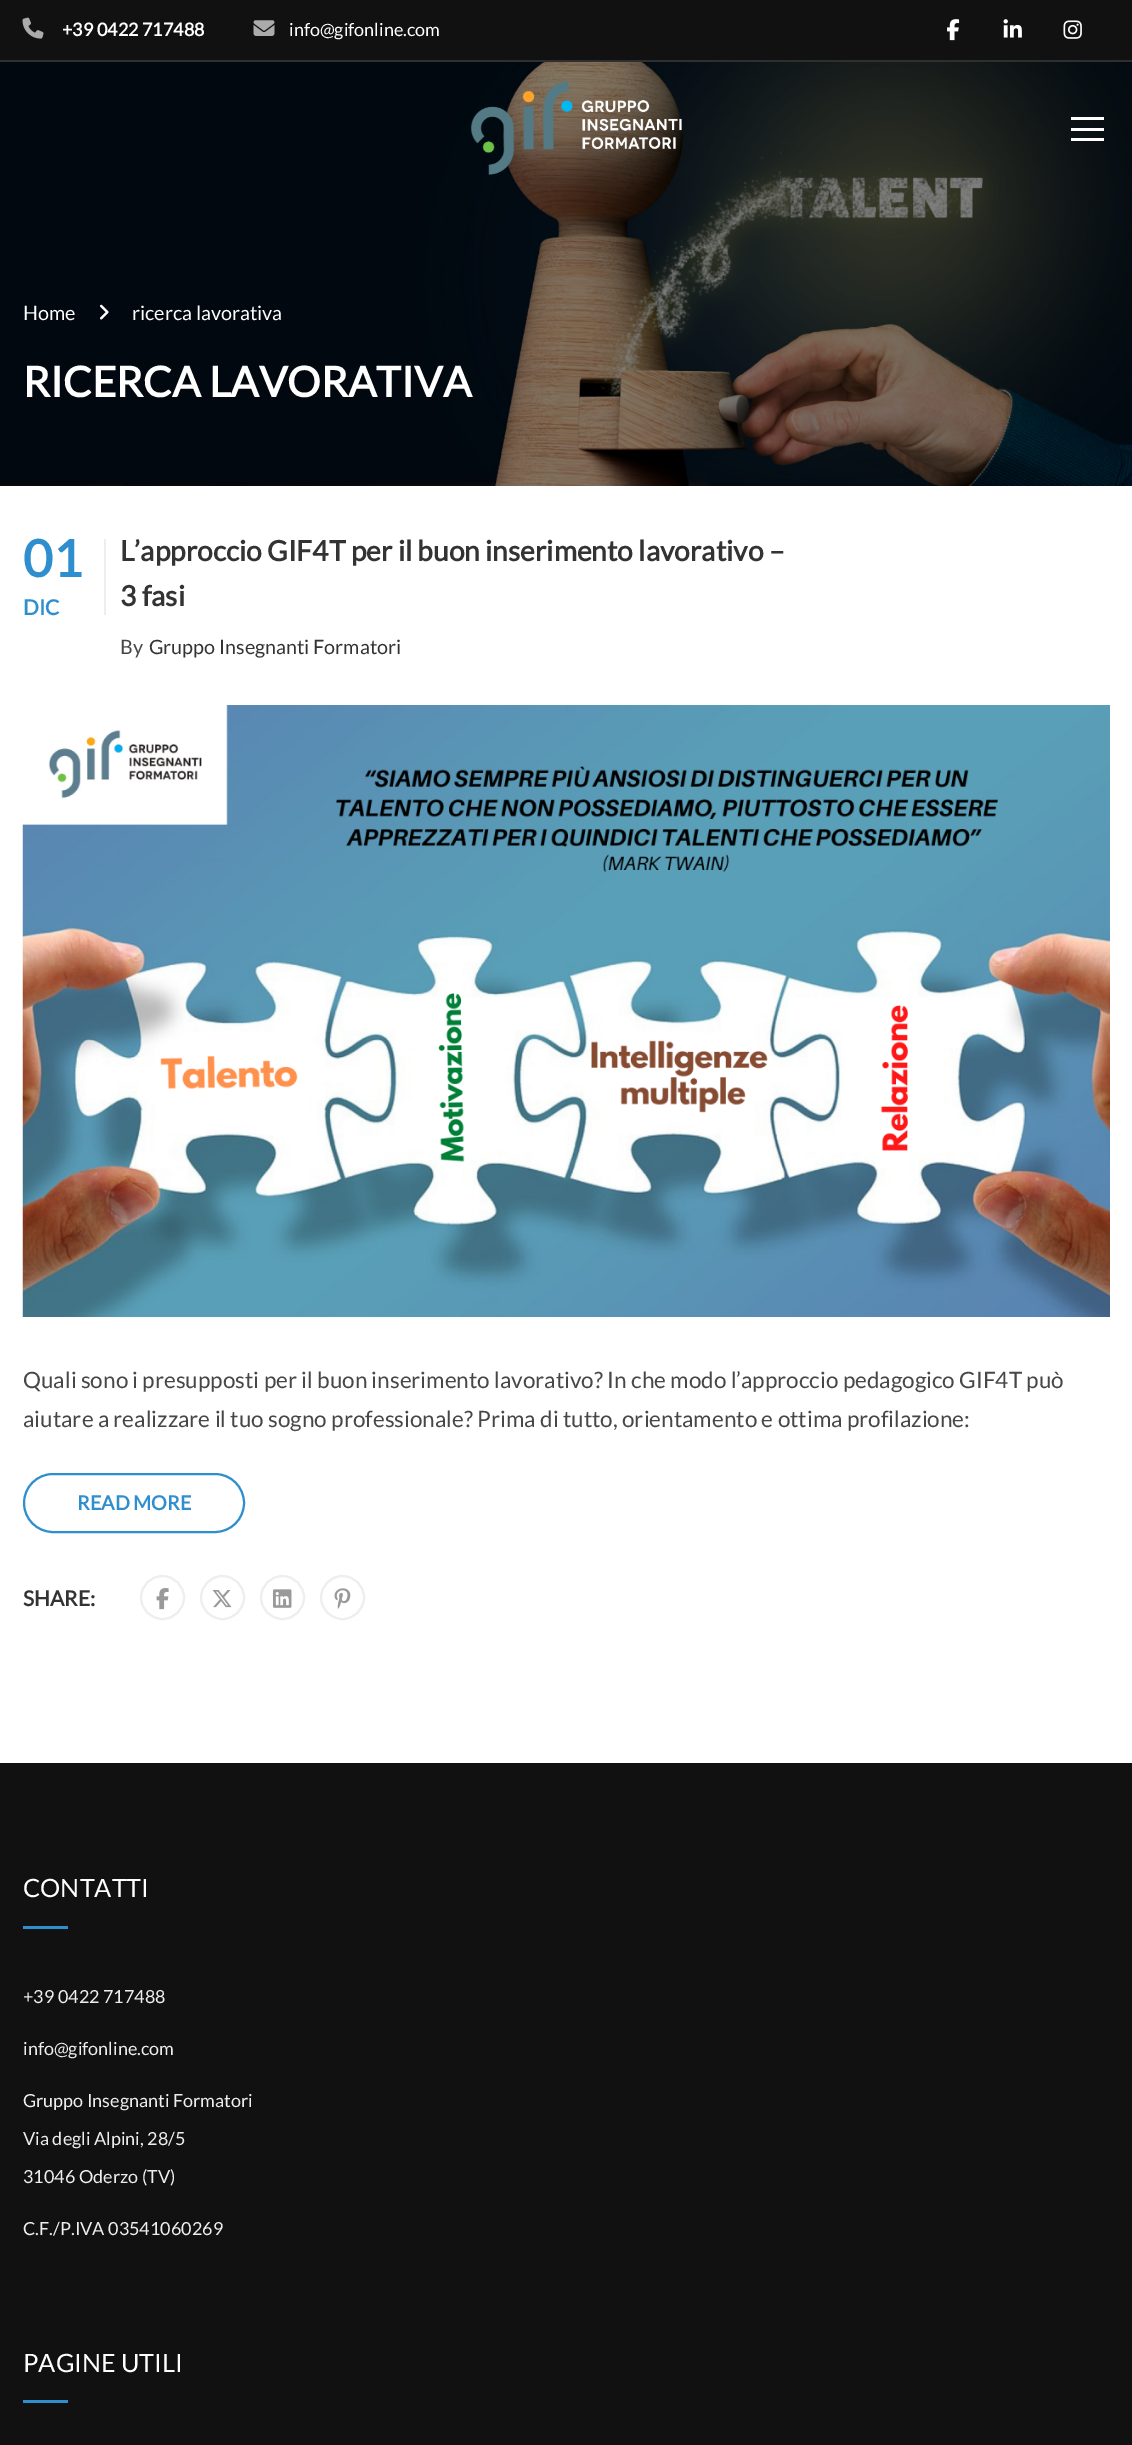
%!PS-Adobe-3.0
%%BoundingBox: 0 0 1132 2445
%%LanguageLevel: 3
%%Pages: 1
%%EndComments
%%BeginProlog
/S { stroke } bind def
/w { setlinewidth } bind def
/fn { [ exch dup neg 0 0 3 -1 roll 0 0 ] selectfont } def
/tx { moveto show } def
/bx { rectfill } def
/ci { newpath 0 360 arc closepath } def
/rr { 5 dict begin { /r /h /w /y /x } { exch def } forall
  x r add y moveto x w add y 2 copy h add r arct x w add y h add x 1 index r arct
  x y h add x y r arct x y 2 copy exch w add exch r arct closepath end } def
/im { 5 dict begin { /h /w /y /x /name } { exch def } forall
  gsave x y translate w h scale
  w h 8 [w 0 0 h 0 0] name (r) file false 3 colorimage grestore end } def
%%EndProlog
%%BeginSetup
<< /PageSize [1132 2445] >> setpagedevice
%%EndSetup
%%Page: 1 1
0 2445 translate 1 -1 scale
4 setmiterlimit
1 setgray
0 0 1132 2445 bx
0.067 setgray
0 0 1132 60 bx
0.184 setgray
0 60 1132 2 bx
(image0.raw) 22 17 22 22 im
/Lato-Bold 18 fn
1 setgray
(+39 0422 717488) 62 36 tx
(image1.raw) 253 20 22 16 im
/Lato-Regular 18 fn
(info@gifonline.com) 289 36 tx
(image2.raw) 947 19 13 22 im
(image3.raw) 1003 19 19 19 im
(image4.raw) 1063 20 19 19 im
(image6.raw) 0 62 1132 424 im
(image5.raw) 470 81 212 94 im
1071 117 33 3 bx
1071 128 33 3 bx
1071 138 33 3 bx
/Lato-Regular 19.75 fn
(Home) 23 320 tx
(image7.raw) 100 304 9 16 im
(ricerca lavorativa) 132 320 tx
/Lato-Bold 42 fn
(RICERCA LAVORATIVA) 23 397 tx
0.933 setgray
104 539 2 76 bx
/Lato-Bold 51 fn
0.18 0.557 0.808 setrgbcolor
(01) 23 577 tx
/Lato-Bold 21 fn
(DIC) 23 615 tx
/Lato-Bold 28.1 fn
0.2 setgray
(L’approccio GIF4T per il buon inserimento lavorativo –) 120 561 tx
(3 fasi) 120 606 tx
/Lato-Regular 19.75 fn
0.278 setgray
(By) 120 654 tx
0.2 setgray
(Gruppo Insegnanti Formatori) 149 654 tx
(image8.raw) 22 705 1088 612 im
/Lato-Regular 22.5 fn
0.278 setgray
(Quali sono i presupposti per il buon inserimento lavorativo? In che modo l’approccio pedagogico GIF4T può) 23 1388 tx
(aiutare a realizzare il tuo sogno professionale? Prima di tutto, orientamento e ottima profilazione:) 23 1427 tx
0.18 0.557 0.808 setrgbcolor
2 w
24 1474 220 58 29 rr S
/Lato-Bold 19.75 fn
(READ MORE) 77 1510 tx
/Lato-Bold 21 fn
0.2 setgray
(SHARE:) 23 1606 tx
0.933 setgray
162.5 1597.5 21.5 ci S
(image9.raw) 156 1588 13 22 im
222.5 1597.5 21.5 ci S
(image10.raw) 212 1590 20 18 im
282.5 1597.5 21.5 ci S
(image11.raw) 273 1589 19 19 im
342.5 1597.5 21.5 ci S
(image12.raw) 334 1588 17 21 im
0.067 setgray
0 1763 1132 682 bx
/Lato-Regular 25.25 fn
1 setgray
(CONTATTI) 23 1897 tx
0.18 0.557 0.808 setrgbcolor
23 1926 45 3 bx
/Lato-Regular 18 fn
0.933 setgray
(+39 0422 717488) 23 2003 tx
(info@gifonline.com) 23 2055 tx
(Gruppo Insegnanti Formatori) 23 2107 tx
(Via degli Alpini, 28/5) 23 2145 tx
(31046 Oderzo \(TV\)) 23 2183 tx
(C.F./P.IVA 03541060269) 23 2235 tx
/Lato-Regular 25.25 fn
1 setgray
(PAGINE UTILI) 23 2372 tx
0.18 0.557 0.808 setrgbcolor
23 2400 45 3 bx
showpage
%%EOF
